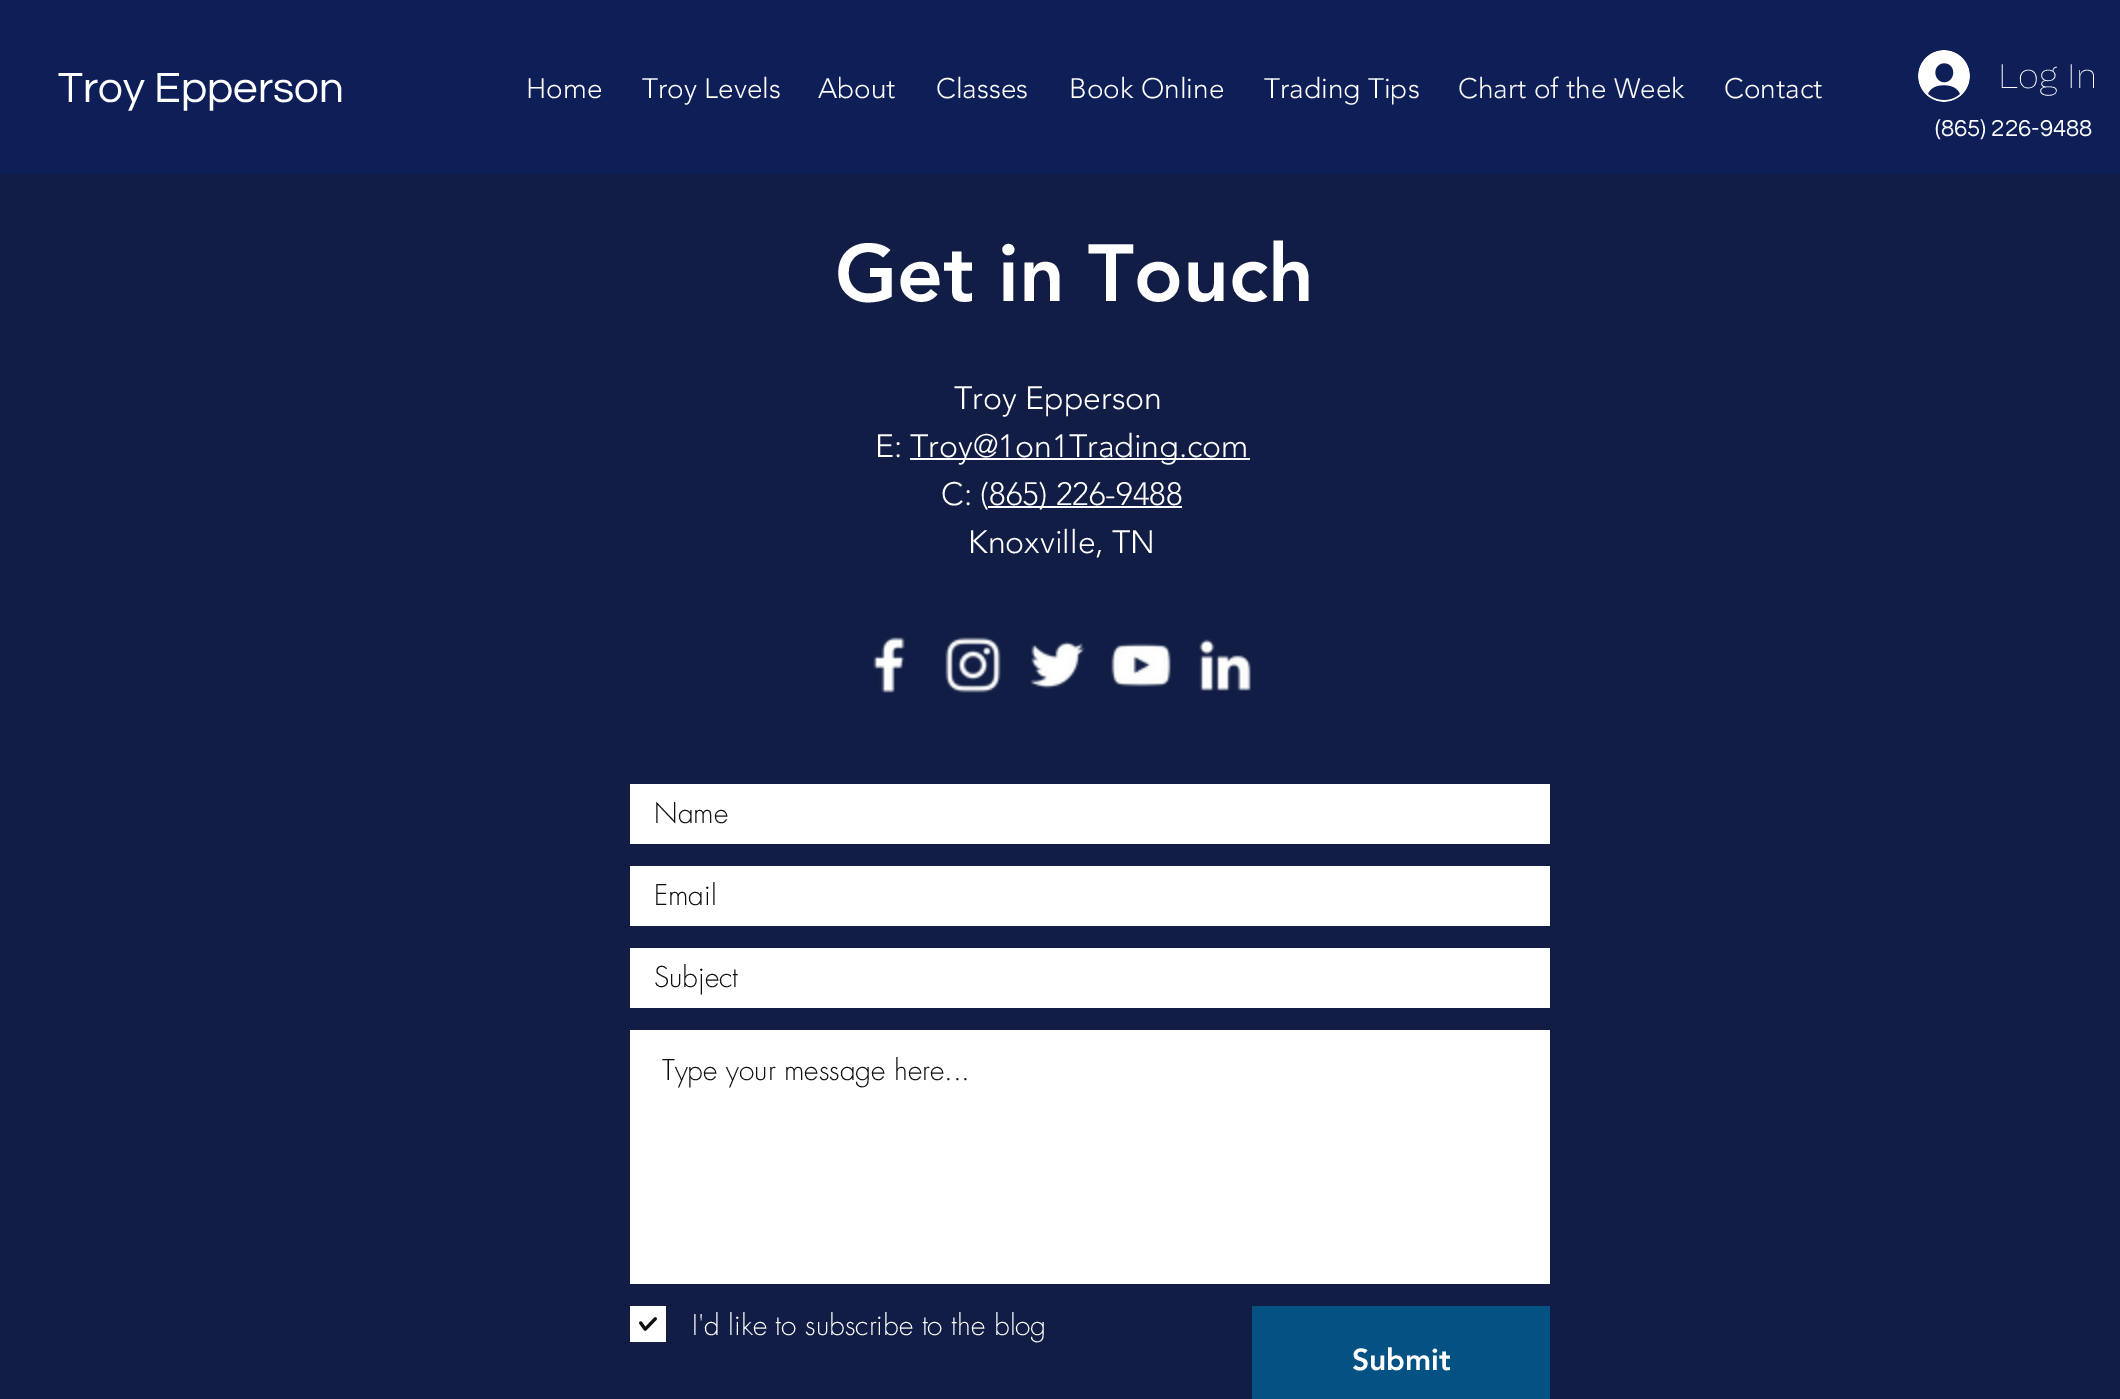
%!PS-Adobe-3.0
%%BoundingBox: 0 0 2120 1399
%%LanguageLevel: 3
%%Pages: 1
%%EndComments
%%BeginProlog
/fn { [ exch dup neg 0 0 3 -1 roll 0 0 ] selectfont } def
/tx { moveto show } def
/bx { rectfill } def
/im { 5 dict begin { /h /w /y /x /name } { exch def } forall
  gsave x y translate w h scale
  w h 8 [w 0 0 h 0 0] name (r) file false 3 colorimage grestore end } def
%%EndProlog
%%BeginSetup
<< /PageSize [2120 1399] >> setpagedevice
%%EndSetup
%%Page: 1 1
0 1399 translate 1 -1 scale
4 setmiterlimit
0.067 0.114 0.267 setrgbcolor
0 0 2120 1399 bx
0.055 0.122 0.345 setrgbcolor
0 0 2120 174 bx
/Questrial-Regular 44 fn
1 setgray
(Troy Epperson) 58 102 tx
/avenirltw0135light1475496-Light 28 fn
(Home) 526 98 tx
(Troy Levels) 642 98 tx
(About) 818 98 tx
(Classes) 936 98 tx
(Book Online) 1069 98 tx
(Trading Tips) 1264 98 tx
0.969 setgray
(Chart of the Week) 1458 98 tx
1 setgray
(Contact) 1724 98 tx
(image0.raw) 1918 50 52 52 im
/WorkSans-ExtraLight 36 fn
(Log In) 1998 88 tx
/Questrial-Regular 24 fn
(\(865\) 226-9488) 1935 136 tx
/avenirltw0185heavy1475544-Black 80 fn
(Get in Touch) 835 301 tx
/avenirltw0135light1475496-Light 32 fn
(Troy Epperson) 954 409 tx
(E:) 875 457 tx
910 458 340 2 bx
(Troy@1on1Trading.com) 910 457 tx
(C: \() 941 505 tx
988 506 194 2 bx
(865\) 226-9488) 989 505 tx
(Knoxville, TN) 968 553 tx
(image1.raw) 873 637 32 56 im
(image2.raw) 945 637 56 56 im
(image3.raw) 1030 641 55 48 im
(image4.raw) 1111 643 60 44 im
(image5.raw) 1199 639 52 52 im
630 784 920 60 bx
/futura-Light 28 fn
0.059 setgray
(Name) 654 823 tx
1 setgray
630 866 920 60 bx
0.059 setgray
(Email) 654 905 tx
1 setgray
630 948 920 60 bx
0.059 setgray
(Subject) 654 987 tx
1 setgray
630 1030 920 254 bx
0.059 setgray
(Type your message here...) 662 1080 tx
1 setgray
630 1306 36 36 bx
(I'd like to subscribe to the blog) 692 1335 tx
(image6.raw) 639 1317 18 14 im
0.016 0.318 0.518 setrgbcolor
1252 1306 298 93 bx
/avenirltw0185heavy1475544-Black 30 fn
1 setgray
(Submit) 1352 1370 tx
showpage
%%EOF
